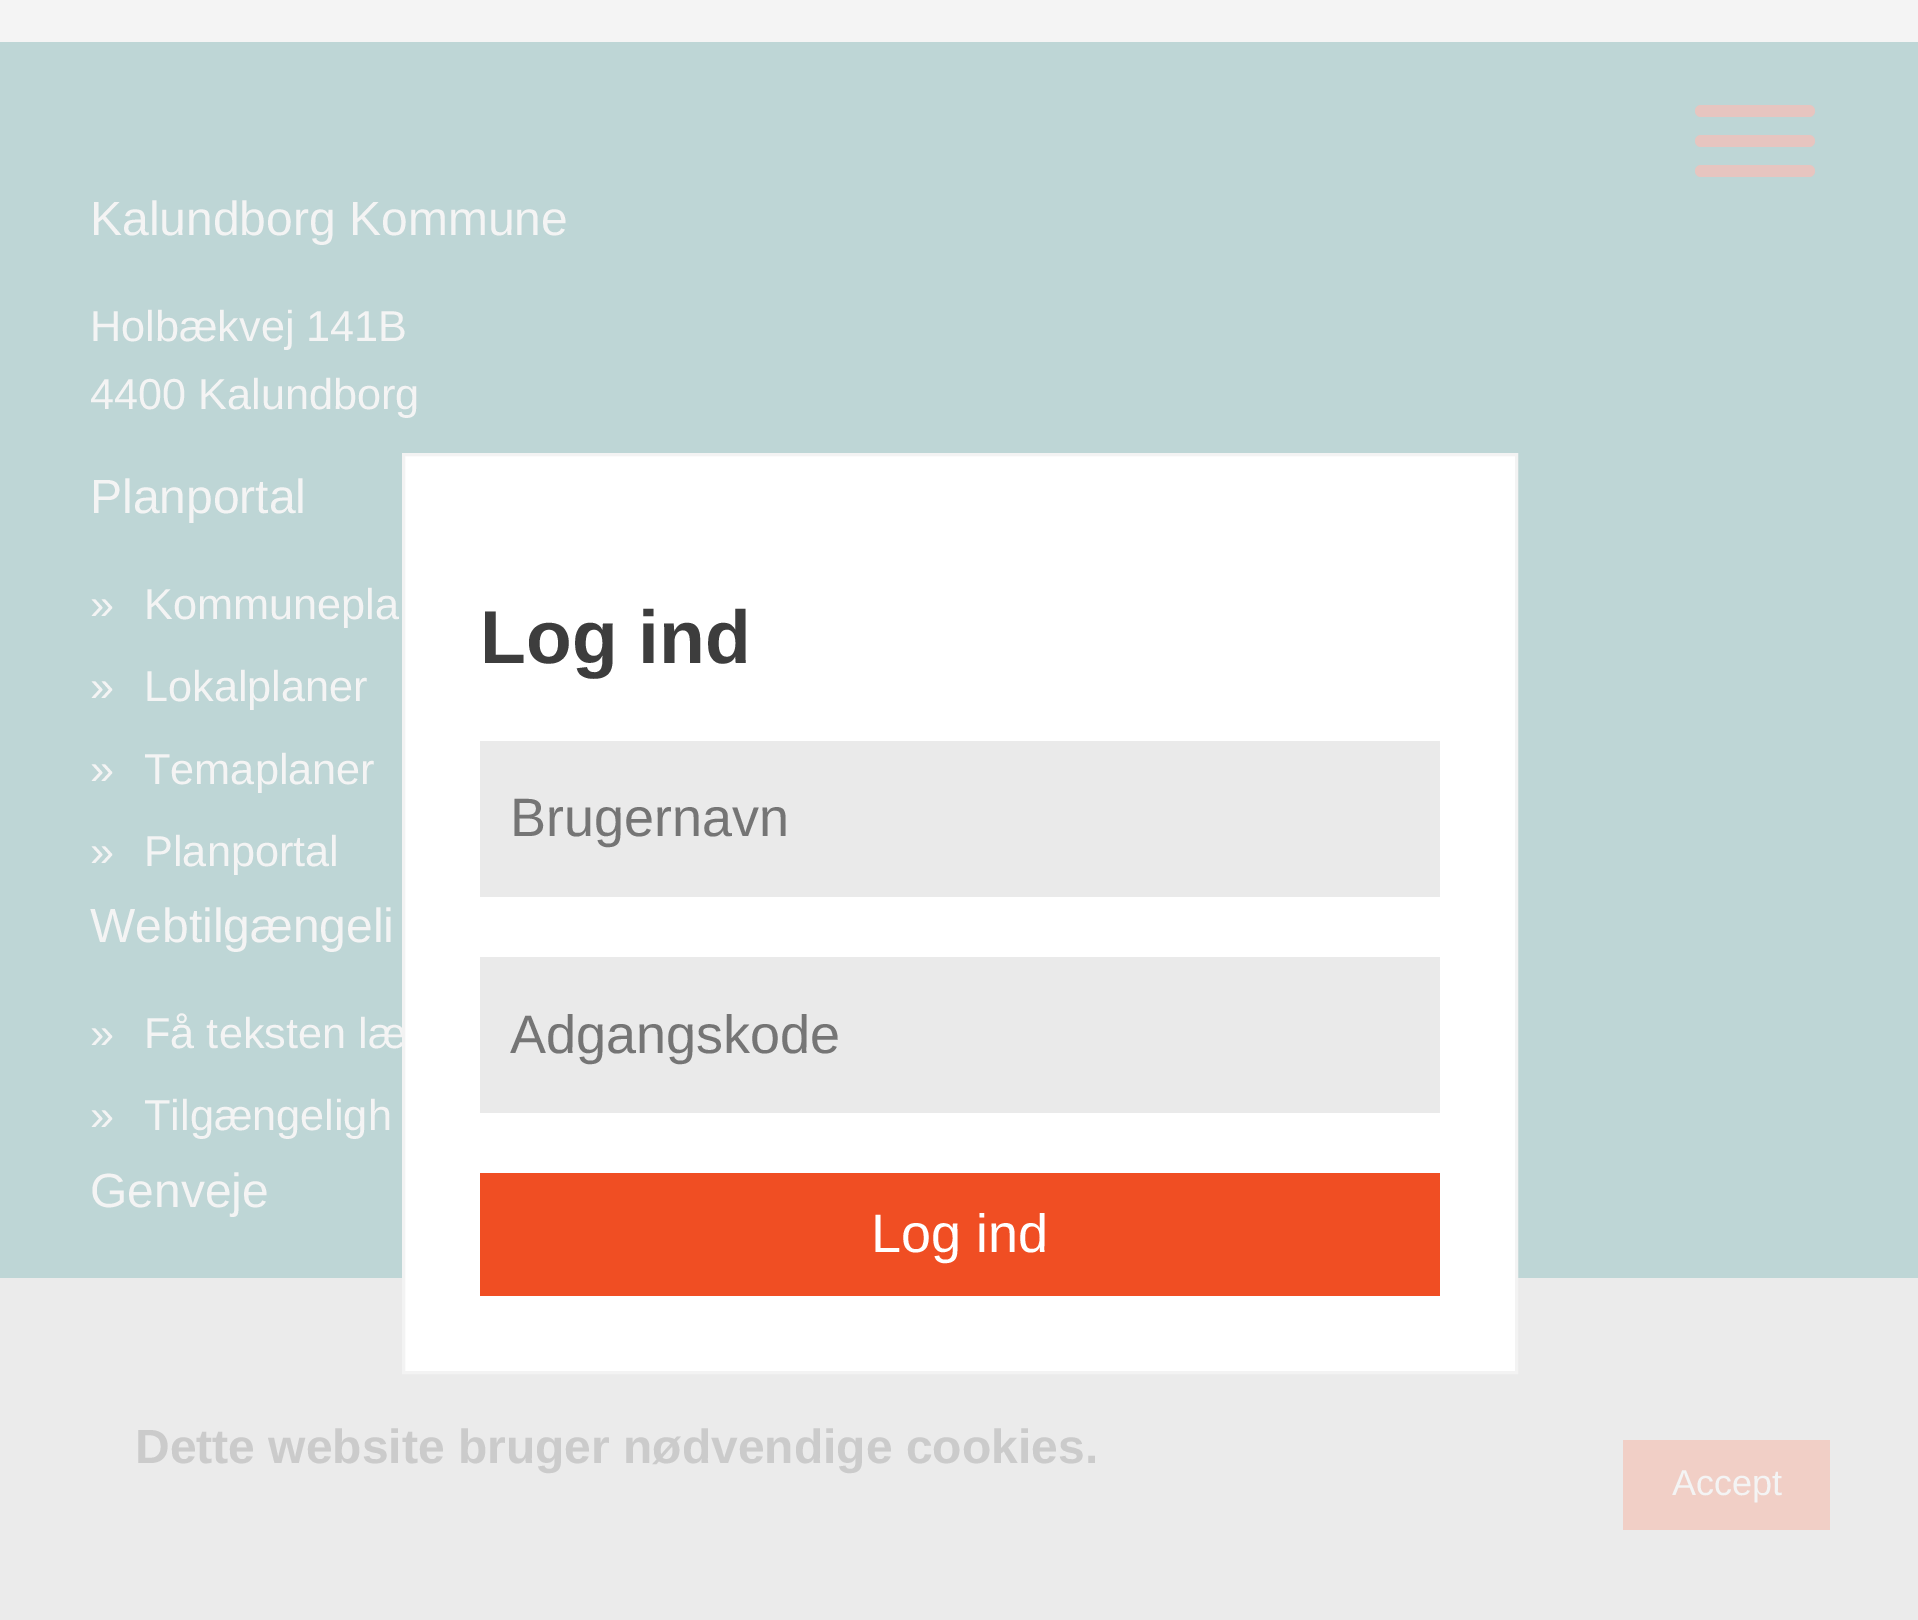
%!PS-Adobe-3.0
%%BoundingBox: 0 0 1918 1620
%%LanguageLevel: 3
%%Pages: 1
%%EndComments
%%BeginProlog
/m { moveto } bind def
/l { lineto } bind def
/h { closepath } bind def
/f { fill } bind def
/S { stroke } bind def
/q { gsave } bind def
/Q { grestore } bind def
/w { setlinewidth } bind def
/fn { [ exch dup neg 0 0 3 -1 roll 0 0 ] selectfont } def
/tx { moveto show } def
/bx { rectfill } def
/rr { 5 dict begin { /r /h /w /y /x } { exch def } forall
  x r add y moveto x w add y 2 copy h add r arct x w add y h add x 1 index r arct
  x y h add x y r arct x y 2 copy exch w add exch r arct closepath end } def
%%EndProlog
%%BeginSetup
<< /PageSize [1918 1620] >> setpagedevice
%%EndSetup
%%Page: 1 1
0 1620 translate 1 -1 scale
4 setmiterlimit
0.957 setgray
0 0 1918 1620 bx
0.745 0.839 0.839 setrgbcolor
0 42 1918 1236 bx
0.906 0.773 0.753 setrgbcolor
1695 105 120 12 6 rr f
1695 135 120 12 6 rr f
1695 165 120 12 6 rr f
/LiberationSans-Regular 48 fn
0.957 setgray
(Kalundborg Kommune) 90 235 tx
/LiberationSans-Regular 43.25 fn
(Holbækvej 141B) 90 341 tx
(4400 Kalundborg) 90 409 tx
/LiberationSans-Regular 48 fn
(Planportal) 90 513 tx
/LiberationSans-Regular 43.25 fn
(») 90 619 tx
(Kommunepla) 144 619 tx
(») 90 701 tx
(Lokalplaner) 144 701 tx
(») 90 784 tx
(Temaplaner) 144 784 tx
(») 90 866 tx
(Planportal) 144 866 tx
/LiberationSans-Regular 48 fn
(Webtilgængeli) 90 942 tx
/LiberationSans-Regular 43.25 fn
(») 90 1048 tx
(Få teksten læ) 144 1048 tx
(») 90 1130 tx
(Tilgængeligh) 144 1130 tx
/LiberationSans-Regular 48 fn
(Genveje) 90 1207 tx
0.922 setgray
0 1278 1918 342 bx
1 setgray
403.5 454.5 m 1516.5 454.5 l 1516.5 1372.5 l 403.5 1372.5 l h q f Q
0.953 setgray
3 w
S
/LiberationSans-Bold 75 fn
0.239 setgray
(Log ind) 480 663 tx
0.918 setgray
480 741 960 156 bx
/LiberationSans-Regular 54 fn
0.459 setgray
(Brugernavn) 510 836 tx
0.918 setgray
480 957 960 156 bx
0.459 setgray
(Adgangskode) 510 1053 tx
0.941 0.306 0.137 setrgbcolor
480 1173 960 123 bx
1 setgray
(Log ind) 871 1252 tx
/LiberationSans-Bold 48 fn
0.796 setgray
(Dette website bruger nødvendige cookies.) 135 1463 tx
0.945 0.812 0.776 setrgbcolor
1623 1440 207 90 bx
/LiberationSans-Regular 36 fn
0.957 setgray
(Accept) 1672 1495 tx
showpage
%%EOF
